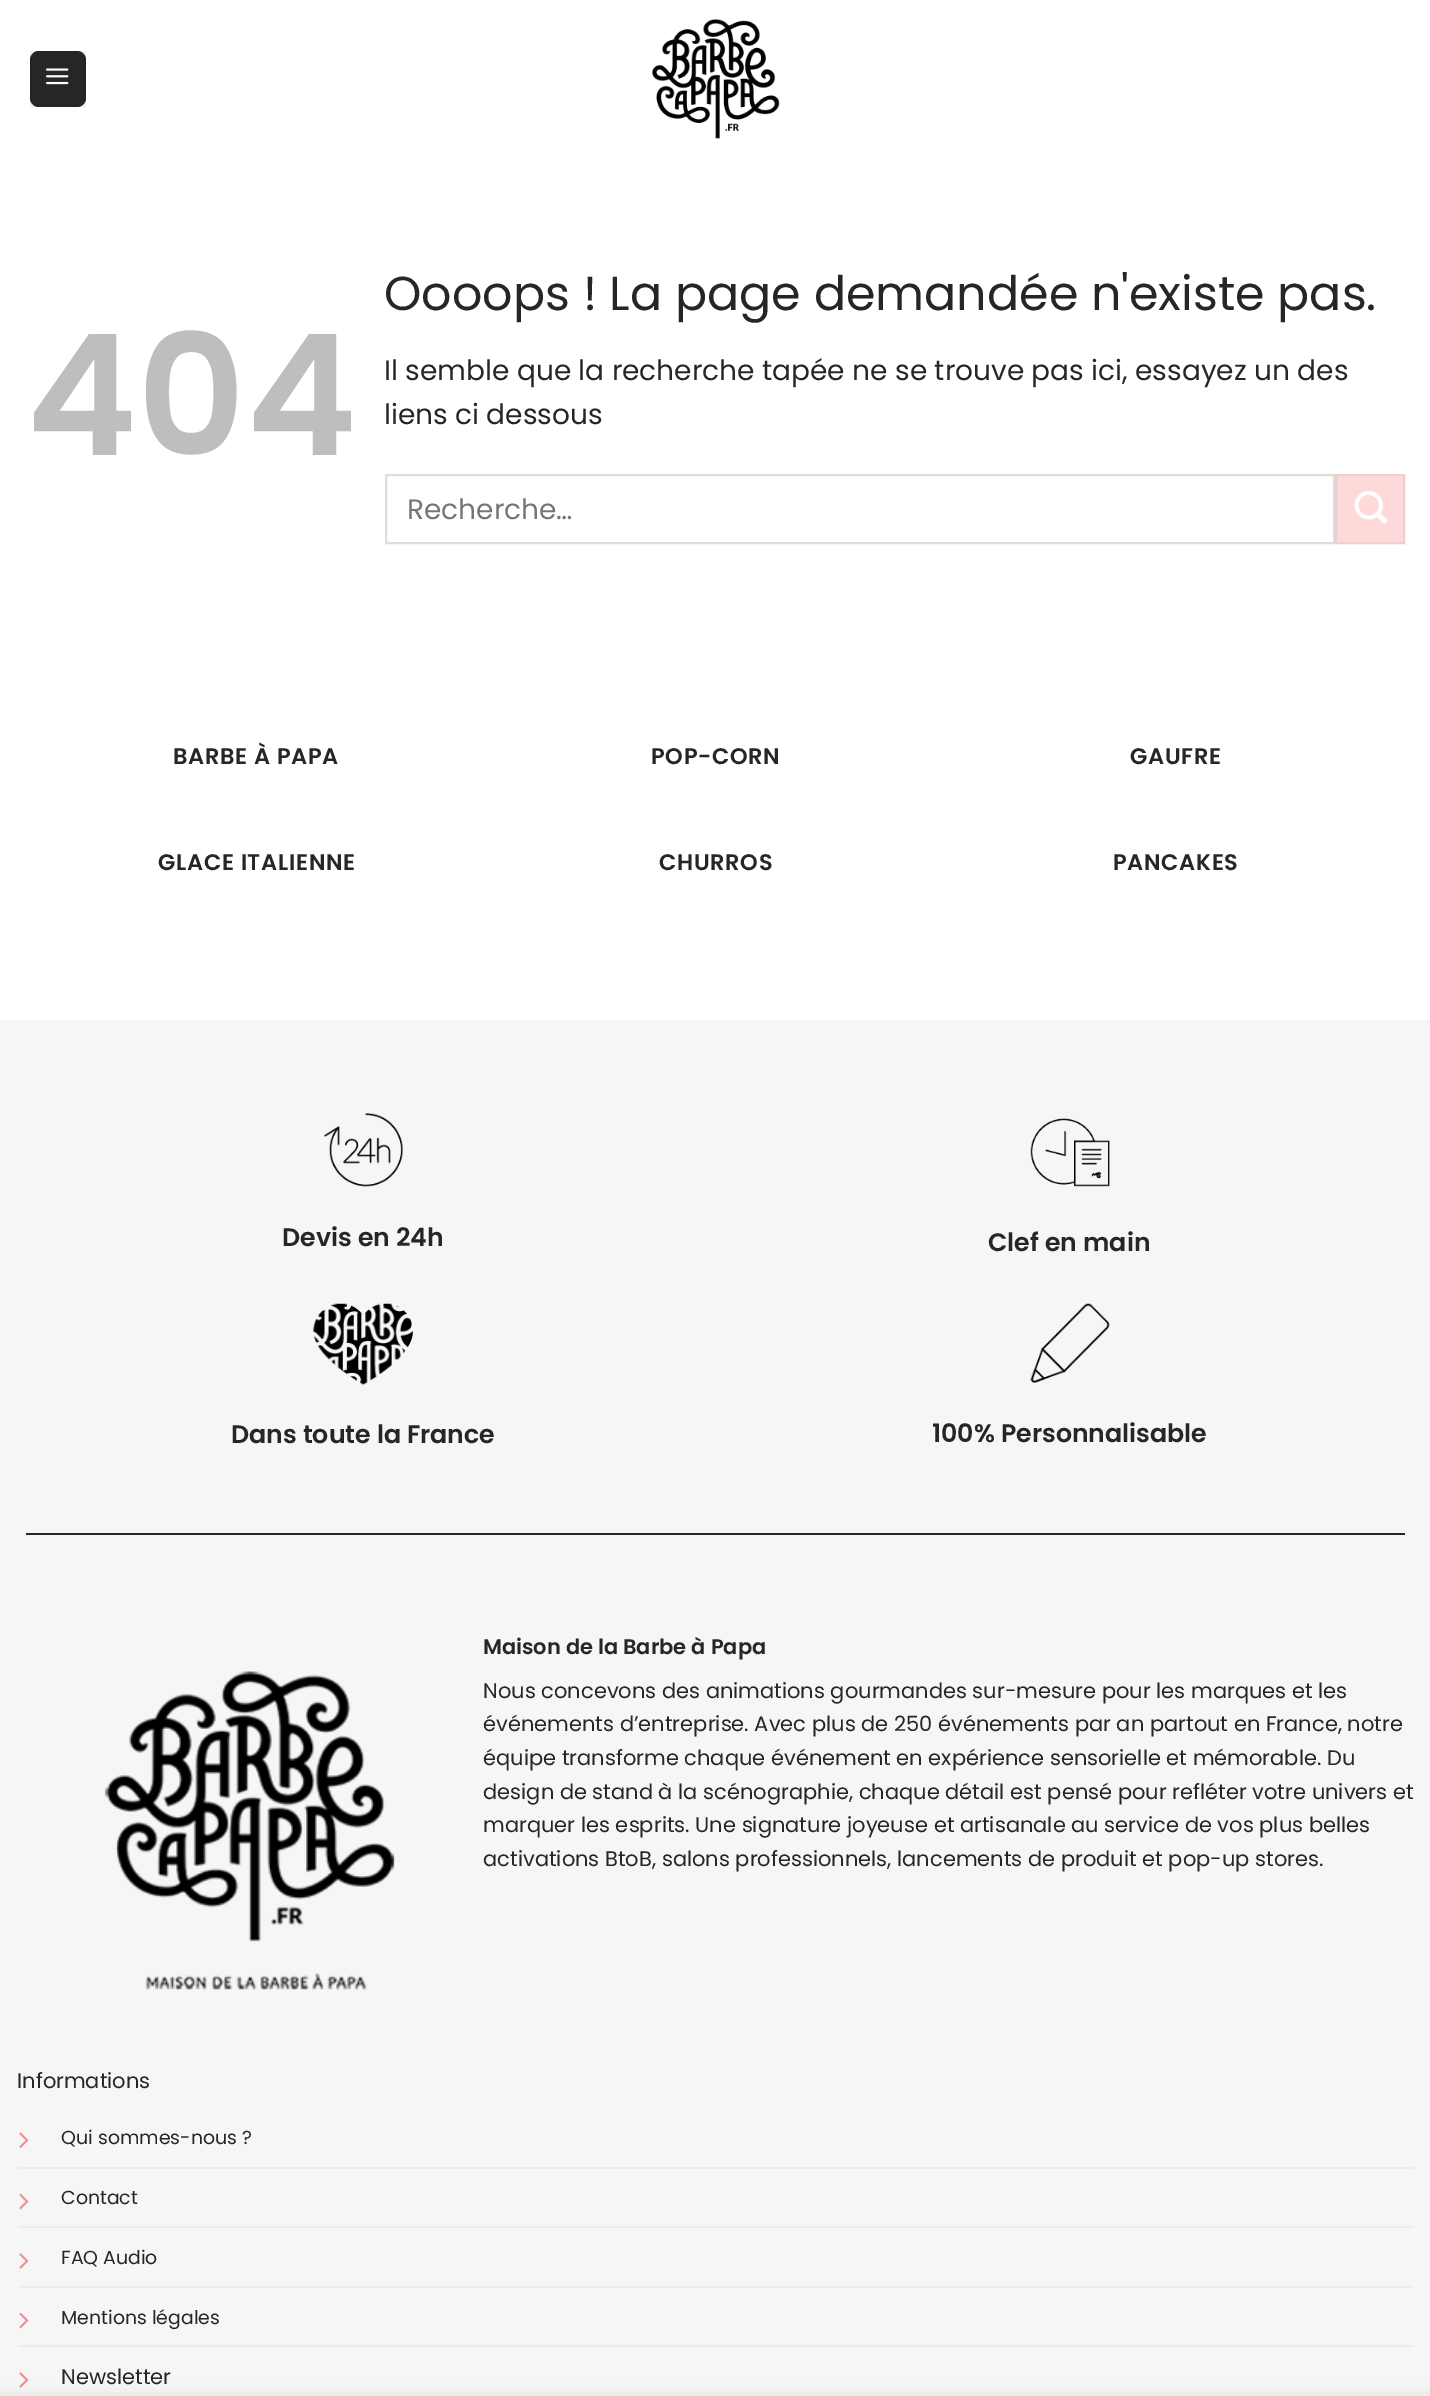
%!PS-Adobe-3.0
%%BoundingBox: 0 0 1430 2396
%%LanguageLevel: 3
%%Pages: 1
%%EndComments
%%BeginProlog
/m { moveto } bind def
/l { lineto } bind def
/h { closepath } bind def
/f { fill } bind def
/S { stroke } bind def
/q { gsave } bind def
/Q { grestore } bind def
/w { setlinewidth } bind def
/fn { [ exch dup neg 0 0 3 -1 roll 0 0 ] selectfont } def
/tx { moveto show } def
/bx { rectfill } def
/al { dup .setfillconstantalpha .setstrokeconstantalpha } def
/rr { 5 dict begin { /r /h /w /y /x } { exch def } forall
  x r add y moveto x w add y 2 copy h add r arct x w add y h add x 1 index r arct
  x y h add x y r arct x y 2 copy exch w add exch r arct closepath end } def
/sh { 12 dict begin { /a /b /q /h /w /y /x } { exch def } forall gsave /was 0 def
  9 -2 -9 { dup b mul 4 div /e exch def 1 sub .425 mul 2.718 exch exp 1 add a .99 .min exch div /now exch def
    1 1 now sub 1 was sub div sub al /was now def
    w h .min e 2 mul add 0 gt { x e sub y e sub w e 2 mul add h e 2 mul add
      q e add b .6 mul add w h .min 2 div e add .min 0 .max rr fill } if } for grestore end } def
/im { 5 dict begin { /h /w /y /x /name } { exch def } forall
  gsave x y translate w h scale
  w h 8 [w 0 0 h 0 0] name (r) file false 3 colorimage grestore end } def
%%EndProlog
%%BeginSetup
<< /PageSize [1430 2396] /PageUsesTransparency true >> setpagedevice
%%EndSetup
%%Page: 1 1
0 .pushpdf14devicefilter
0 2396 translate 1 -1 scale
4 setmiterlimit
1 setgray
0 0 1430 2396 bx
0.149 setgray
30 51 56 56 9 rr f
0.05 al
0 setgray
2 w
31 52 54 54 rectstroke
1 al
(image0.raw) 46 68 23 17 im
(image1.raw) 652 19 128 120 im
/Poppins-SemiBold 168 fn
0.745 setgray
(404) 26 455 tx
/Poppins-Regular 47.6 fn
0.149 setgray
(Oooops ! La page demandée n'existe pas.) 384 310 tx
/Poppins-Regular 28 fn
(Il semble que la recherche tapée ne se trouve pas ici, essayez un des) 384 380 tx
(liens ci dessous) 384 424 tx
0.867 setgray
386 475 948 68 rectstroke
0.459 setgray
(Recherche…) 407 519 tx
0.996 0.851 0.851 setrgbcolor
1336 475 m 1404 475 l 1404 543 l 1336 543 l h q f Q
0.945 0.808 0.808 setrgbcolor
S
(image2.raw) 1354 491 33 33 im
/Poppins-SemiBold 22.5 fn
0.149 setgray
173 764 m 0.7 0 (BARBE À PAPA) ashow
651 764 m 0.7 0 (POP-CORN) ashow
1130 764 m 0.7 0 (GAUFRE) ashow
158 870 m 0.7 0 (GLACE ITALIENNE) ashow
659 870 m 0.7 0 (CHURROS) ashow
1113 870 m 0.7 0 (PANCAKES) ashow
0.965 setgray
0 1020 1430 1376 bx
(image3.raw) 323 1113 80 74 im
/Poppins-SemiBold 25.25 fn
0.149 setgray
(Devis en 24h) 282 1246 tx
(image4.raw) 1030 1118 80 69 im
(Clef en main) 988 1251 tx
(image5.raw) 313 1303 100 82 im
(Dans toute la France) 231 1443 tx
(image6.raw) 1030 1303 80 80 im
(100% Personnalisable) 932 1442 tx
26 1533 1379 2 bx
(image7.raw) 104 1671 291 319 im
/Poppins-SemiBold 21 fn
(Maison de la Barbe à Papa) 483 1654 tx
/Poppins-Regular 21 fn
(Nous concevons des animations gourmandes sur-mesure pour les marques et les) 483 1698 tx
(événements d’entreprise. Avec plus de 250 événements par an partout en France, notre) 483 1731 tx
(équipe transforme chaque événement en expérience sensorielle et mémorable. Du) 483 1765 tx
(design de stand à la scénographie, chaque détail est pensé pour refléter votre univers et) 483 1799 tx
(marquer les esprits. Une signature joyeuse et artisanale au service de vos plus belles) 483 1832 tx
(activations BtoB, salons professionnels, lancements de produit et pop-up stores.) 483 1866 tx
(Informations) 17 2088 tx
0.925 setgray
18 2167 1396 2 bx
(image8.raw) 19 2132 10 16 im
/Poppins-Regular 18.9 fn
0.149 setgray
(Qui sommes-nous ?) 61 2144 tx
0.925 setgray
18 2226 1396 2 bx
(image9.raw) 19 2193 10 17 im
0.149 setgray
(Contact) 61 2204 tx
0.925 setgray
18 2286 1396 2 bx
(image10.raw) 19 2253 10 16 im
0.149 setgray
(FAQ Audio) 61 2264 tx
0.925 setgray
18 2345 1396 2 bx
(image9.raw) 19 2312 10 17 im
0.149 setgray
(Mentions légales) 61 2324 tx
(image10.raw) 19 2372 10 16 im
/Poppins-Regular 21 fn
(Newsletter) 61 2384 tx
0 setgray
0 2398 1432 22 0 8 0.14 sh
.poppdf14devicefilter showpage
%%EOF
